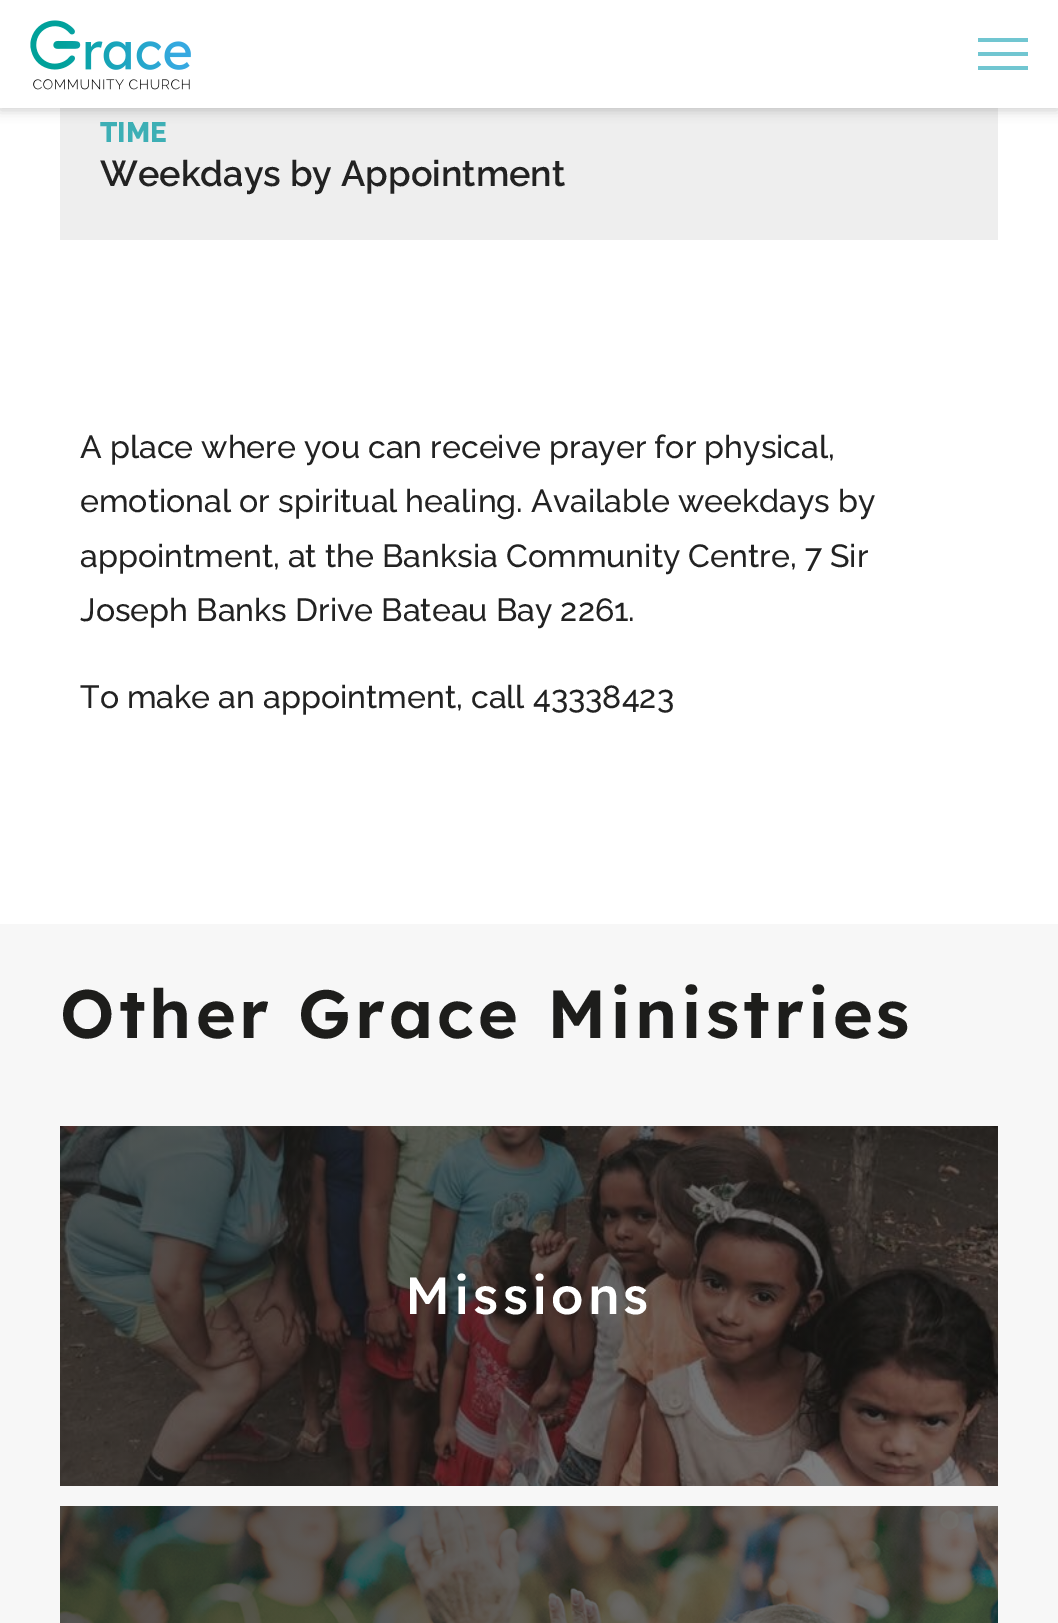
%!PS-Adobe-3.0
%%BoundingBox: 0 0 1058 1623
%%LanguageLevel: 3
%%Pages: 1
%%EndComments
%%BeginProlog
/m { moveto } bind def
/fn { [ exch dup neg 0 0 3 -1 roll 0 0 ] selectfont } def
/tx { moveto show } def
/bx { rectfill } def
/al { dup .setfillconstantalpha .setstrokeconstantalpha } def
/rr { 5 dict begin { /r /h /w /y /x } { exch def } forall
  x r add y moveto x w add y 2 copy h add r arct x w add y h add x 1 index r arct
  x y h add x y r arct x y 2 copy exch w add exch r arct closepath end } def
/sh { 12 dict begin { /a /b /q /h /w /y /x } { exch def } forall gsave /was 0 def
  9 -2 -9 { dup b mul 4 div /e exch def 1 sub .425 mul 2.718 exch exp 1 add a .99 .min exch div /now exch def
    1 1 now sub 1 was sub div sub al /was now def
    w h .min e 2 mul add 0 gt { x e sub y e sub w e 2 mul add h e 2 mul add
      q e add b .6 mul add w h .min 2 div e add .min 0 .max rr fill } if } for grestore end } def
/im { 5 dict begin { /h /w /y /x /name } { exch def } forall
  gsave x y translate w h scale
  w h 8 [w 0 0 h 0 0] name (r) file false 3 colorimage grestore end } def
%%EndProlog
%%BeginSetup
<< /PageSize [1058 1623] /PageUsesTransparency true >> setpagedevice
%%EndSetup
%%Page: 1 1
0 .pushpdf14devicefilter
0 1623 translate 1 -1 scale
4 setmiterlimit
1 setgray
0 0 1058 1623 bx
0.933 setgray
60 108 938 132 bx
0 setgray
0 2 1058 108 0 6 0.2 sh
1 setgray
0 0 1058 108 bx
(image0.raw) 30 20 161 70 im
0.443 0.776 0.82 setrgbcolor
978 38 50 4 bx
978 52 50 4 bx
978 66 50 4 bx
/Raleway-ExtraBold 28 fn
0.239 0.686 0.71 setrgbcolor
(TIME) 100 142 tx
/Raleway-SemiBold 36 fn
0.133 setgray
(Weekdays by Appointment) 100 186 tx
/Raleway-Medium 32 fn
(A place where you can receive prayer for physical,) 80 458 tx
(emotional or spiritual healing. Available weekdays by) 80 512 tx
(appointment, at the Banksia Community Centre, 7 Sir) 80 567 tx
(Joseph Banks Drive Bateau Bay 2261.) 80 621 tx
(To make an appointment, call 43338423) 80 708 tx
0.969 setgray
0 924 1058 699 bx
/LexendDeca-SemiBold 68 fn
0.114 0.114 0.106 setrgbcolor
60 1038 m 4 0 (Other Grace Ministries) ashow
(image1.raw) 60 1126 938 360 im
/LexendDeca-Medium 52 fn
1 setgray
405 1314 m 4 0 (Missions) ashow
(image2.raw) 60 1506 938 117 im
.poppdf14devicefilter showpage
%%EOF
